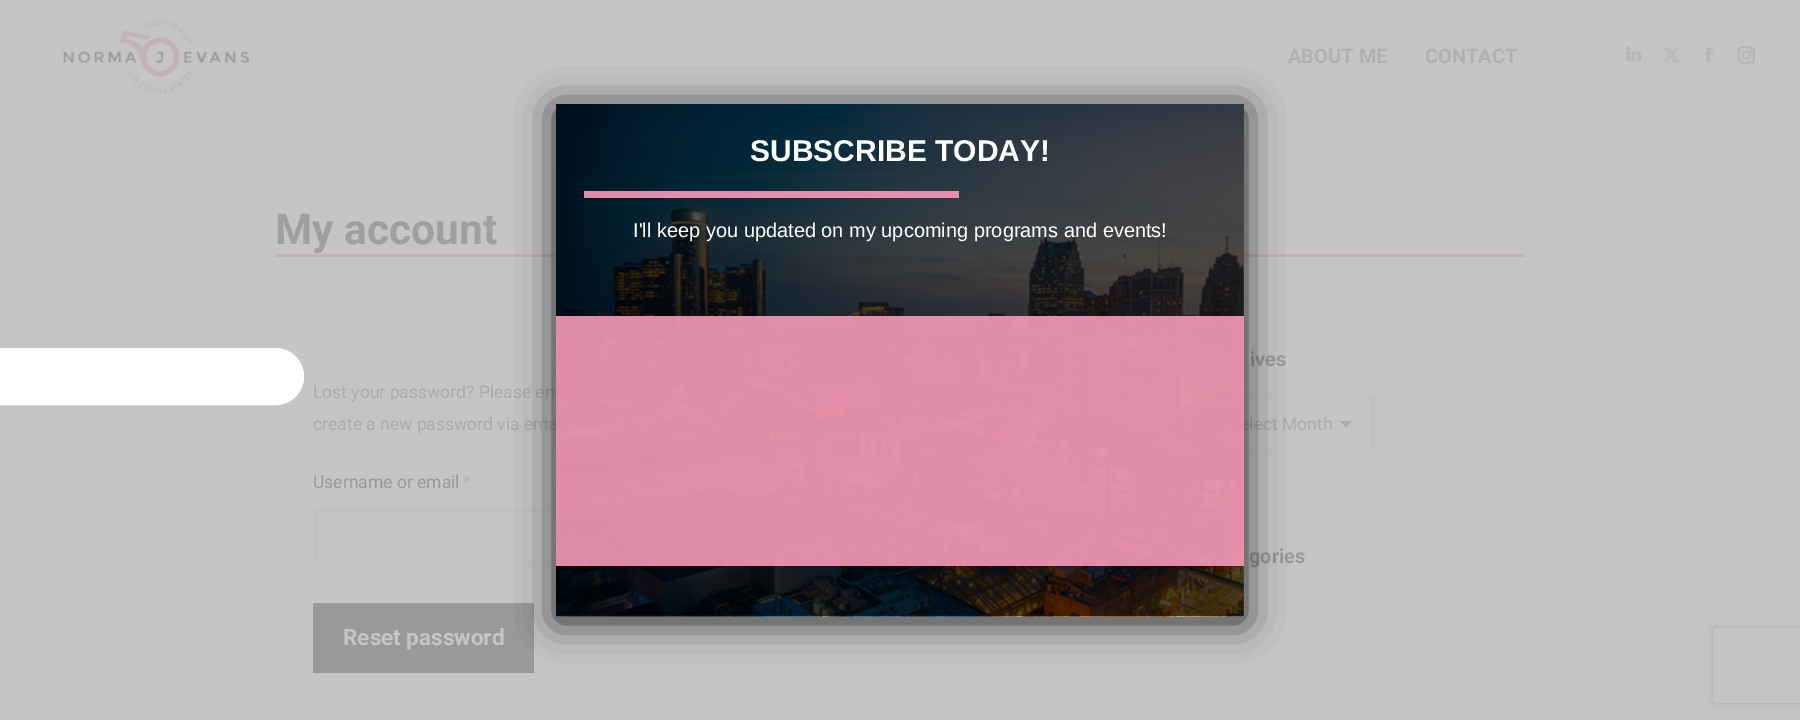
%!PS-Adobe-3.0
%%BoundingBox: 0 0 1800 720
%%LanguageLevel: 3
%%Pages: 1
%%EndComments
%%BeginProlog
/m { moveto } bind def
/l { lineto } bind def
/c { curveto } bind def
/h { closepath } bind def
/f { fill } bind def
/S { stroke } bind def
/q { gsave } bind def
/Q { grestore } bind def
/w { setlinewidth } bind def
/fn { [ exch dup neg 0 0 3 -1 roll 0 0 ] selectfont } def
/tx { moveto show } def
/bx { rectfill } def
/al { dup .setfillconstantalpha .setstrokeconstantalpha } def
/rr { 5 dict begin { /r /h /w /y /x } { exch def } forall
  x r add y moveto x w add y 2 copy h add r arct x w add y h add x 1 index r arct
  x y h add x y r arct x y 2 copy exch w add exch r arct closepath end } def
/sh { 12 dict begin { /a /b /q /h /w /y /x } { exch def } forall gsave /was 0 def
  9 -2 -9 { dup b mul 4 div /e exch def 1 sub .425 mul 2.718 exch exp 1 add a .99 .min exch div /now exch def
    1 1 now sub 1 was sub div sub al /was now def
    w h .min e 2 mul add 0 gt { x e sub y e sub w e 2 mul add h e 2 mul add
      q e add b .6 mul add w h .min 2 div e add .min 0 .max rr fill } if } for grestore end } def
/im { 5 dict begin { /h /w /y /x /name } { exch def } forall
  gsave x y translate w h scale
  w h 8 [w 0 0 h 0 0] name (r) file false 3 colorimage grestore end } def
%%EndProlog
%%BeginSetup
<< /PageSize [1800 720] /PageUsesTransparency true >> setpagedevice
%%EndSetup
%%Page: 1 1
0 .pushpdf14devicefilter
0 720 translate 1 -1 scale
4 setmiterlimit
0.773 setgray
0 0 1800 720 bx
0.753 0.757 0.757 setrgbcolor
0 113 1800 1 bx
(image0.raw) 63 20 186 74 im
/Roboto-Bold 20 fn
0.69 0.69 0.694 setrgbcolor
(ABOUT ME) 1288 63 tx
(CONTACT) 1425 63 tx
(image1.raw) 1626 46 16 16 im
(image2.raw) 1663 47 17 16 im
(image3.raw) 1705 47 8 16 im
(image4.raw) 1737 46 18 18 im
/Roboto-Bold 42.5 fn
0.62 0.624 0.631 setrgbcolor
(My account) 275 244 tx
0.769 0.694 0.718 setrgbcolor
275 254 1250 3 bx
/Roboto-Regular 17.5 fn
0.667 0.671 0.678 setrgbcolor
(Lost your password? Please en) 313 398 tx
(create a new password via ema) 313 430 tx
0.596 0.6 0.604 setrgbcolor
(Username or email) 313 488 tx
0.71 0.714 0.718 setrgbcolor
(*) 463 488 tx
0.757 0.761 0.761 setrgbcolor
4 w
315 510 727 53 rectstroke
0.596 0.6 0.604 setrgbcolor
313 603 221 70 bx
/Roboto-Bold 22.5 fn
0.773 setgray
(Reset password) 343 645 tx
0.753 0.757 0.757 setrgbcolor
1144 615 1 95 bx
/Roboto-Bold 20 fn
0.596 0.6 0.604 setrgbcolor
(ives) 1250 366 tx
q 1346 421 m 1353 421 l 1353 427 l 1346 427 l h clip newpath
<< /ShadingType 2 /ColorSpace /DeviceRGB /Coords [1346 421 1353 427] /Extend [true true] /Function << /FunctionType 3 /Domain [0 1] /Functions [<< /FunctionType 2 /Domain [0 1] /C0 [0.667 0.671 0.678] /C1 [0.667 0.671 0.678] /N 1 >> << /FunctionType 2 /Domain [0 1] /C0 [0.773 0.773 0.773] /C1 [0.773 0.773 0.773] /N 1 >>] /Bounds [0.5] /Encode [0 1 0 1] >> >> shfill Q
q 1340 421 m 1346 421 l 1346 428 l 1340 428 l h clip newpath
<< /ShadingType 2 /ColorSpace /DeviceRGB /Coords [1340 427 1346 421] /Extend [true true] /Function << /FunctionType 3 /Domain [0 1] /Functions [<< /FunctionType 2 /Domain [0 1] /C0 [0.773 0.773 0.773] /C1 [0.773 0.773 0.773] /N 1 >> << /FunctionType 2 /Domain [0 1] /C0 [0.667 0.671 0.678] /C1 [0.667 0.671 0.678] /N 1 >>] /Bounds [0.5] /Encode [0 1 0 1] >> >> shfill Q
0.757 0.761 0.761 setrgbcolor
1210 397 163 54 rectstroke
/Roboto-Regular 17.5 fn
0.667 0.671 0.678 setrgbcolor
(elect Month) 1240 430 tx
/Roboto-Bold 20 fn
0.596 0.6 0.604 setrgbcolor
(gories) 1249 563 tx
0.125 setgray
556 109 688 512 0 19 1 sh
0.9 al
1 setgray
556 104 688 512 bx
1 al
(image5.raw) 556 104 688 513 im
0.7 al
0 setgray
556 104 688 512 bx
/LiberationSans-Bold 30 fn
1 al
1 setgray
(SUBSCRIBE TODAY!) 750 161 tx
0.9 al
0.969 0.604 0.725 setrgbcolor
584 191 375 7 bx
/LiberationSans-Regular 20 fn
1 al
1 setgray
(I'll keep you updated on my upcoming programs and events!) 633 237 tx
-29.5 348.5 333 56 28 rr q f Q
1 w
S
0.9 al
0.969 0.604 0.725 setrgbcolor
556 316 688 250 bx
q
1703 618 m 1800 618 l 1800 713 l 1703 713 l h 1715.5 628 m 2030.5 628 l 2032 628 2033 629 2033 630.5 c 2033 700.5 l 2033 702 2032 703 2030.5 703 c 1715.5 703 l 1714 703 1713 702 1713 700.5 c 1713 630.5 l 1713 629 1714 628 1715.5 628 c h eoclip newpath
1 al
0.675 setgray
1713 628 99 75 2.5 3 1 sh
Q
.poppdf14devicefilter showpage
%%EOF
